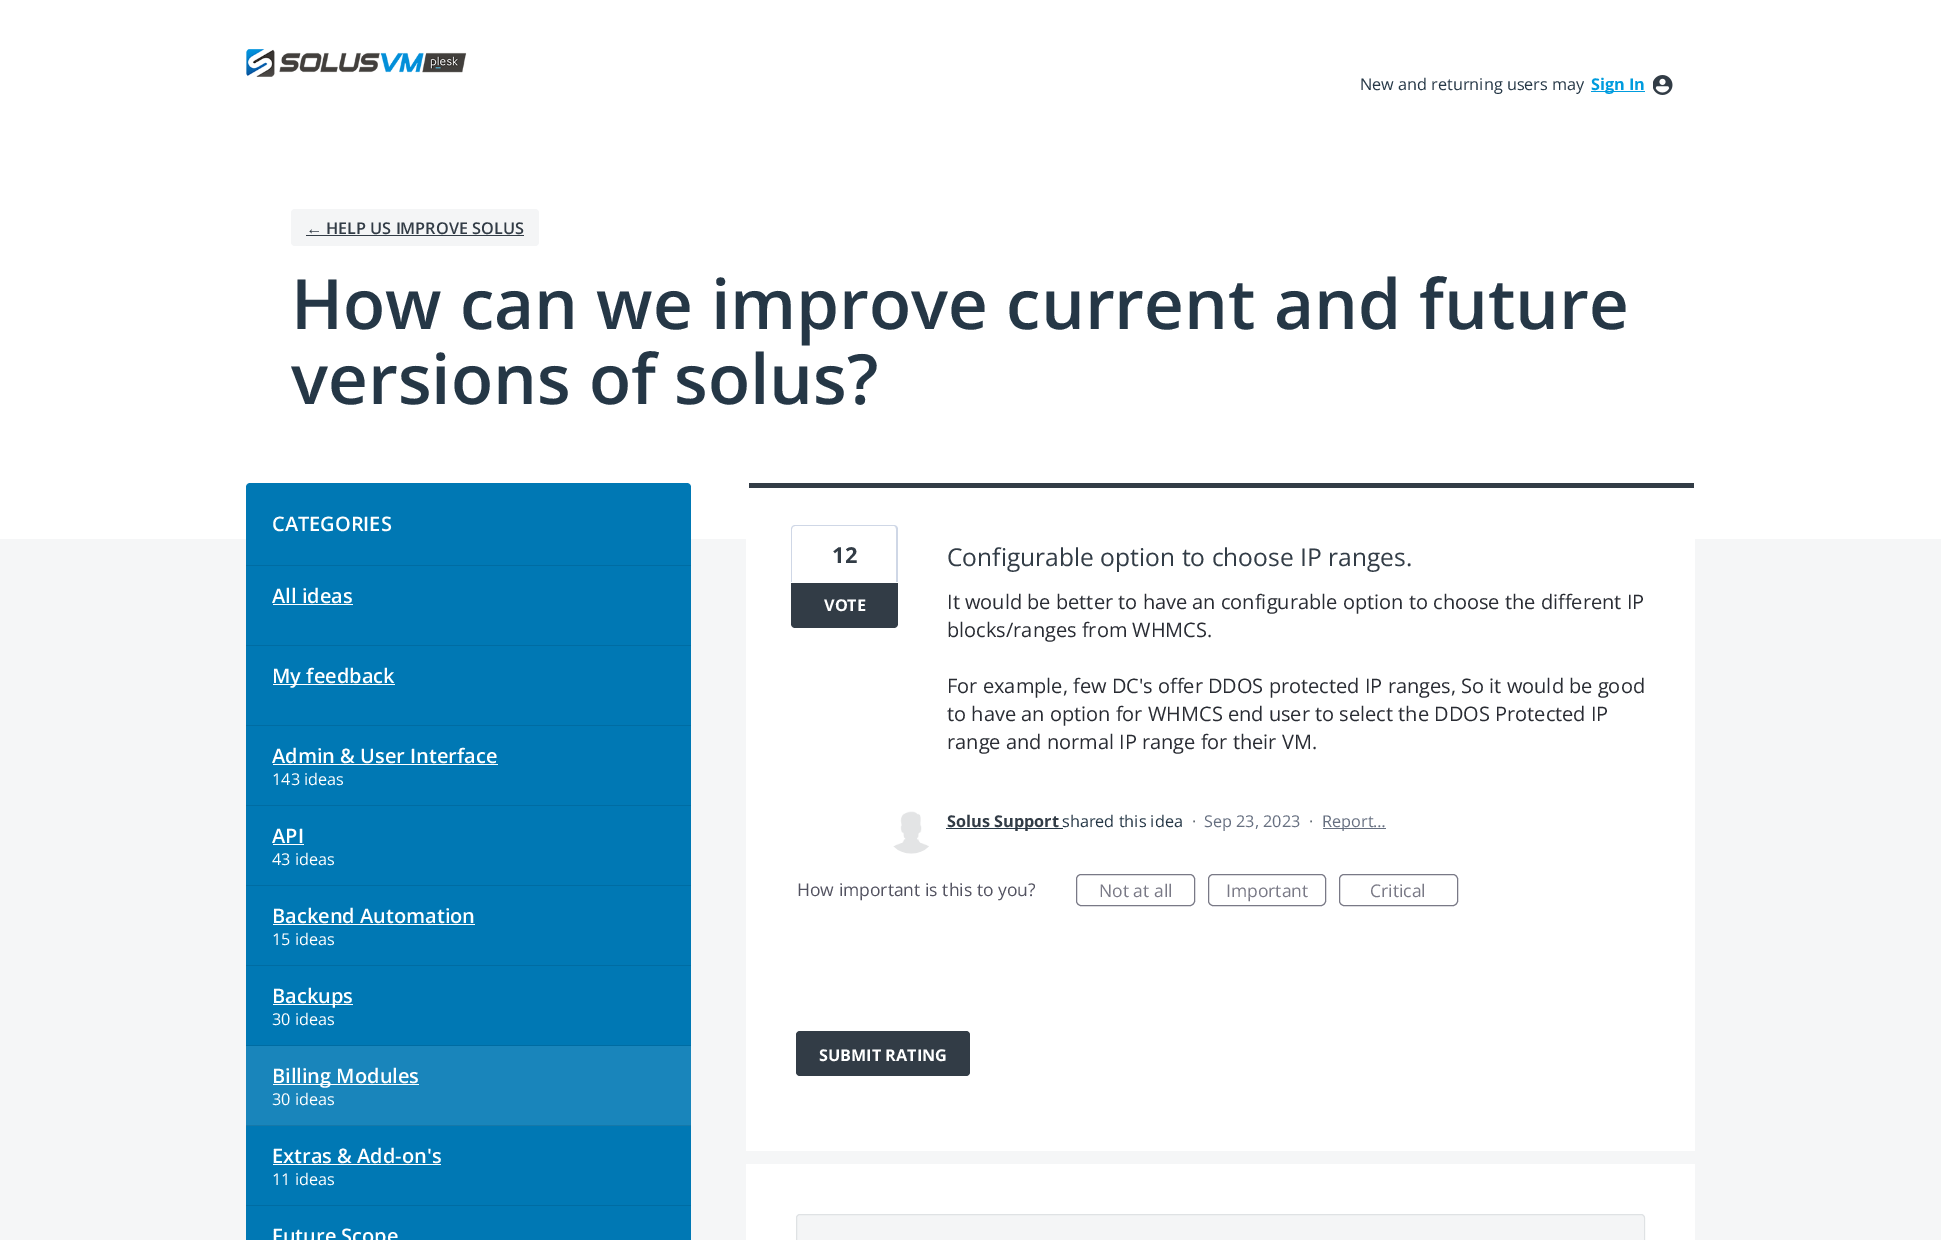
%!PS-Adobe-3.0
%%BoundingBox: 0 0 1941 1240
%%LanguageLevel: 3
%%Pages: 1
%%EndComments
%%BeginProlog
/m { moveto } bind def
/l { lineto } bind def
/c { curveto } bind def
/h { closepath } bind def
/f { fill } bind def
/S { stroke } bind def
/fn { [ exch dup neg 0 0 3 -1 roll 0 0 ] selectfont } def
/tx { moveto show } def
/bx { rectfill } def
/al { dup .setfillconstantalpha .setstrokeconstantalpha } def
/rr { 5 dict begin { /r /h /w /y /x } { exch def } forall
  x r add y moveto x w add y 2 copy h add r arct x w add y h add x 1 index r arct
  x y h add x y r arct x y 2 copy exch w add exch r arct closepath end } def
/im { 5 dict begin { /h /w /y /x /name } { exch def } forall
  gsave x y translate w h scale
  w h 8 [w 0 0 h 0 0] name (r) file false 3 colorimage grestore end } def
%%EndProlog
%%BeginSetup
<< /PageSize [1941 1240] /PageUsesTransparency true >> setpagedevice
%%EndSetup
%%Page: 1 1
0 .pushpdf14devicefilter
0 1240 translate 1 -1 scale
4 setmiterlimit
1 setgray
0 0 1941 1240 bx
(image0.raw) 246 49 221 28 im
/OpenSans-Regular 16.25 fn
0.145 0.216 0.275 setrgbcolor
(New and returning users may) 1360 90 tx
0 0.612 0.871 setrgbcolor
1591 91 54 1 bx
/OpenSans-Bold 16.25 fn
(Sign In) 1591 90 tx
(image1.raw) 1653 75 20 20 im
0.957 0.961 0.965 setrgbcolor
291 209 248 37 4 rr f
/LiberationSans-Bold 16.25 fn
0.196 0.235 0.275 setrgbcolor
(←) 306 234 tx
306 235 218 1 bx
/OpenSans-SemiBold 16.25 fn
(HELP US IMPROVE SOLUS) 326 234 tx
/OpenSans-SemiBold 69.25 fn
0.145 0.216 0.275 setrgbcolor
(How can we improve current and future) 291 329 tx
(versions of solus?) 291 404 tx
0.961 0.965 0.969 setrgbcolor
0 539 1941 701 bx
0 0.471 0.706 setrgbcolor
250 483 m 687 483 l 689 483 691 485 691 487 c 691 566 l 246 566 l 246 487 l 246 485 248 483 250 483 c h f
0 0.424 0.635 setrgbcolor
246 565 445 1 bx
/OpenSans-SemiBold 20 fn
1 setgray
(CATEGORIES) 272 531 tx
0 0.471 0.706 setrgbcolor
246 566 445 79 bx
0 0.424 0.635 setrgbcolor
246 645 445 1 bx
1 setgray
(All ideas) 272 603 tx
273 604 80 1 bx
0 0.471 0.706 setrgbcolor
246 646 445 79 bx
0 0.424 0.635 setrgbcolor
246 725 445 1 bx
1 setgray
273 684 122 1 bx
(My feedback) 272 683 tx
0 0.471 0.706 setrgbcolor
246 726 445 79 bx
0 0.424 0.635 setrgbcolor
246 805 445 1 bx
1 setgray
(Admin & User Interface) 272 763 tx
273 764 225 1 bx
/OpenSans-Regular 16.25 fn
(143 ideas) 272 785 tx
0 0.471 0.706 setrgbcolor
246 806 445 79 bx
0 0.424 0.635 setrgbcolor
246 885 445 1 bx
/OpenSans-SemiBold 20 fn
1 setgray
(API) 272 843 tx
273 844 31 1 bx
/OpenSans-Regular 16.25 fn
(43 ideas) 272 865 tx
0 0.471 0.706 setrgbcolor
246 886 445 79 bx
0 0.424 0.635 setrgbcolor
246 965 445 1 bx
/OpenSans-SemiBold 20 fn
1 setgray
(Backend Automation) 272 923 tx
273 924 202 1 bx
/OpenSans-Regular 16.25 fn
(15 ideas) 272 945 tx
0 0.471 0.706 setrgbcolor
246 966 445 79 bx
0 0.424 0.635 setrgbcolor
246 1045 445 1 bx
1 setgray
273 1004 80 1 bx
/OpenSans-SemiBold 20 fn
(Backups) 272 1003 tx
/OpenSans-Regular 16.25 fn
(30 ideas) 272 1025 tx
0.098 0.522 0.733 setrgbcolor
246 1046 445 79 bx
0.09 0.471 0.659 setrgbcolor
246 1125 445 1 bx
1 setgray
273 1084 146 1 bx
/OpenSans-SemiBold 20 fn
(Billing Modules) 272 1083 tx
/OpenSans-Regular 16.25 fn
(30 ideas) 272 1105 tx
0 0.471 0.706 setrgbcolor
246 1126 445 79 bx
0 0.424 0.635 setrgbcolor
246 1205 445 1 bx
/OpenSans-SemiBold 20 fn
1 setgray
(Extras & Add-on's) 272 1163 tx
273 1164 168 1 bx
/OpenSans-Regular 16.25 fn
(11 ideas) 272 1185 tx
0 0.471 0.706 setrgbcolor
246 1206 445 34 bx
/OpenSans-SemiBold 20 fn
1 setgray
(Future Scope) 272 1243 tx
750 488 m 1695 488 l 1695 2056 l 1695 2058 1693 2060 1691 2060 c 750 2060 l 748 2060 746 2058 746 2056 c 746 488 l h f
0.196 0.235 0.275 setrgbcolor
749 483 945 5 bx
0.812 0.843 0.902 setrgbcolor
795 525 m 894 525 l 896 525 898 527 898 529 c 898 582 l 791 582 l 791 529 l 791 527 793 525 795 525 c h 795 526 m 894 526 l 895 526 896 527 896 529 c 896 582 l 792 582 l 792 529 l 792 527 794 526 795 526 c h eofill
/OpenSans-Bold 22 fn
0.196 0.235 0.275 setrgbcolor
(12) 832 563 tx
791 583 m 898 583 l 898 624 l 898 626 896 628 894 628 c 795 628 l 793 628 791 626 791 624 c h f
/OpenSans-Bold 16.25 fn
1 setgray
(VOTE) 824 611 tx
/OpenSans-Regular 24.6 fn
0.196 0.235 0.275 setrgbcolor
(Configurable option to choose IP ranges.) 947 566 tx
/OpenSans-Regular 20 fn
0.161 0.173 0.2 setrgbcolor
(It would be better to have an configurable option to choose the different IP) 947 609 tx
(blocks/ranges from WHMCS.) 947 637 tx
(For example, few DC's offer DDOS protected IP ranges, So it would be good) 947 693 tx
(to have an option for WHMCS end user to select the DDOS Protected IP) 947 721 tx
(range and normal IP range for their VM.) 947 749 tx
(image2.raw) 893 811 36 43 im
0.145 0.216 0.275 setrgbcolor
946 828 117 1 bx
/OpenSans-Bold 16.25 fn
0.196 0.235 0.275 setrgbcolor
(Solus Support) 947 827 tx
/OpenSans-Regular 16.25 fn
0.145 0.216 0.275 setrgbcolor
(shared this idea) 1062 827 tx
0.392 0.42 0.447 setrgbcolor
(·) 1192 827 tx
0.4 0.435 0.502 setrgbcolor
(Sep 23, 2023) 1204 827 tx
0.392 0.42 0.447 setrgbcolor
(·) 1309 827 tx
0.4 0.435 0.502 setrgbcolor
1323 828 63 1 bx
(Report…) 1322 827 tx
/OpenSans-Regular 17.5 fn
0.322 0.322 0.376 setrgbcolor
(How important is this to you?) 797 896 tx
0.475 0.475 0.525 setrgbcolor
1076.5 874.5 118 31 4.5 rr S
(Not at all) 1099 897 tx
1208.5 874.5 117 31 4.5 rr S
(Important) 1226 897 tx
1339.5 874.5 118 31 4.5 rr S
(Critical) 1370 897 tx
0.196 0.235 0.275 setrgbcolor
796 1031 174 45 4 rr f
/OpenSans-Bold 16.25 fn
1 setgray
(SUBMIT RATING) 819 1061 tx
0.961 0.965 0.969 setrgbcolor
746 1151 949 13 bx
0.957 0.961 0.965 setrgbcolor
796 1214 849 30 4 rr f
0.1 al
0.145 0.216 0.275 setrgbcolor
796.5 1214.5 848 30 3.5 rr S
.poppdf14devicefilter showpage
%%EOF
